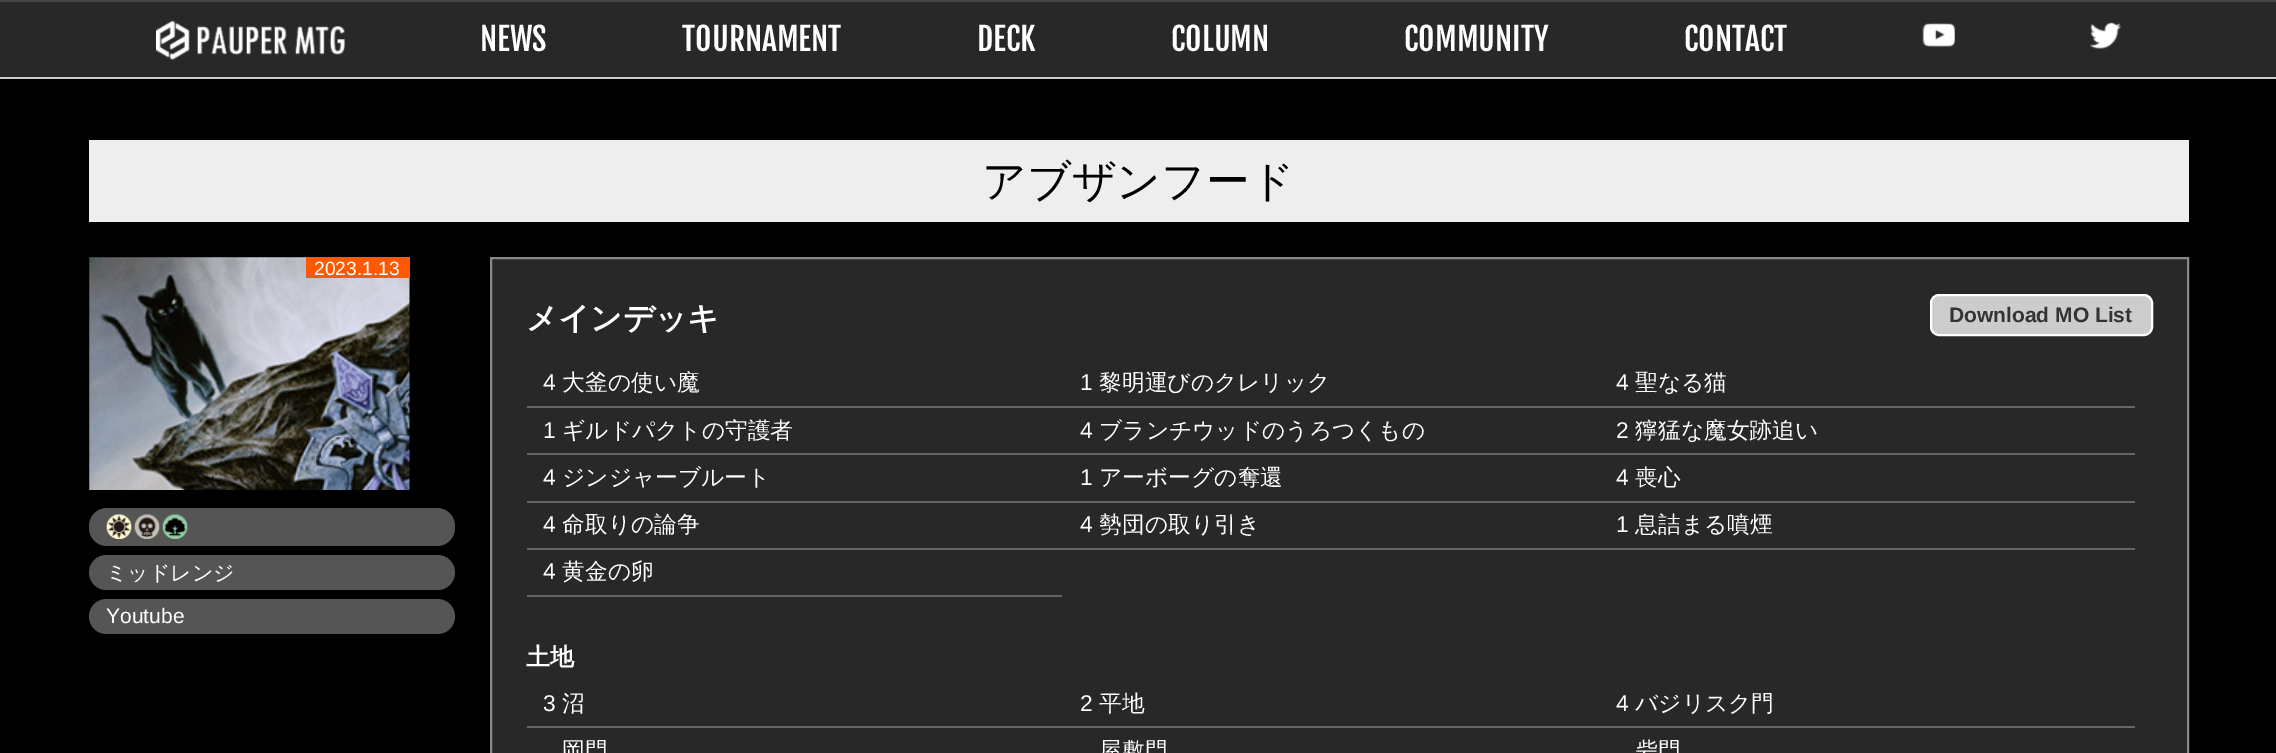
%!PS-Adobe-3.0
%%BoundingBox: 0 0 2276 753
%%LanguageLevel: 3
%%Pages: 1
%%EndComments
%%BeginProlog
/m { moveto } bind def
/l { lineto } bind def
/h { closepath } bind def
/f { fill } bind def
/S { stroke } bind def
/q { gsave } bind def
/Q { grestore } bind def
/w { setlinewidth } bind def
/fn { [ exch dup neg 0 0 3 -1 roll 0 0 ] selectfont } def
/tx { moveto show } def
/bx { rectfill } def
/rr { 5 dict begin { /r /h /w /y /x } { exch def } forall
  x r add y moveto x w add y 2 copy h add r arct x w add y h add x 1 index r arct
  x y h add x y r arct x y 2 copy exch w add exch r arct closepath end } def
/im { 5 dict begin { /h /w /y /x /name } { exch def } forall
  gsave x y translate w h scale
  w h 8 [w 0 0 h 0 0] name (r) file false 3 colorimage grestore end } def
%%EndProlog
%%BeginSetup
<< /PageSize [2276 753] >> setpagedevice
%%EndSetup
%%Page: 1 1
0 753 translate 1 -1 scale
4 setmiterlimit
0 setgray
0 0 2276 753 bx
0.157 setgray
0 2 2276 75 bx
0.267 setgray
0 0 2276 2 bx
0.8 setgray
0 77 2276 2 bx
(image0.raw) 156 20 189 40 im
/FjallaOne-Regular 31.5 fn
1 setgray
(NEWS) 480 51 tx
(TOURNAMENT) 682 51 tx
(DECK) 977 51 tx
(COLUMN) 1171 51 tx
(COMMUNITY) 1404 51 tx
(CONTACT) 1684 51 tx
(image1.raw) 1922 23 33 25 im
(image2.raw) 2089 22 33 28 im
0.933 setgray
89 140 2100 82 bx
/WenQuanYiZenHei-Medium 43.75 fn
0 setgray
(アブザンフード) 982 196 tx
(image3.raw) 89 257 321 233 im
1 0.349 0 setrgbcolor
306 257 104 21 bx
/LiberationSans-Regular 19.25 fn
1 setgray
(2023.1.13) 314 275 tx
0.333 setgray
89 508 366 38 18 rr f
(image4.raw) 106 514 26 25 im
(image5.raw) 134 514 26 25 im
(image6.raw) 162 514 26 25 im
89 555 366 35 17.5 rr f
/WenQuanYiZenHei-Medium 21 fn
1 setgray
(ミッドレンジ) 106 580 tx
0.333 setgray
89 599 366 35 17.5 rr f
/LiberationSans-Regular 21 fn
1 setgray
(Youtube) 106 623 tx
0.157 setgray
491 258 m 2188 258 l 2188 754 l 491 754 l h q f Q
0.533 setgray
2 w
S
/WenQuanYiZenHei-Bold 31.5 fn
1 setgray
(メインデッキ) 526 329 tx
0.8 setgray
1931 295 221 40 8 rr q f Q
1 setgray
S
/LiberationSans-Bold 21 fn
0.2 setgray
(Download MO List) 1949 322 tx
0.4 setgray
527 406 1608 2 bx
/LiberationSans-Regular 22.75 fn
1 setgray
(4) 543 390 tx
/WenQuanYiZenHei-Medium 22.75 fn
(大釜の使い魔) 562 390 tx
/LiberationSans-Regular 22.75 fn
(1) 1080 390 tx
/WenQuanYiZenHei-Medium 22.75 fn
(黎明運びのクレリック) 1099 390 tx
/LiberationSans-Regular 22.75 fn
(4) 1616 390 tx
/WenQuanYiZenHei-Medium 22.75 fn
(聖なる猫) 1635 390 tx
0.4 setgray
527 453 1608 2 bx
/LiberationSans-Regular 22.75 fn
1 setgray
(1) 543 438 tx
/WenQuanYiZenHei-Medium 22.75 fn
(ギルドパクトの守護者) 562 438 tx
/LiberationSans-Regular 22.75 fn
(4) 1080 438 tx
/WenQuanYiZenHei-Medium 22.75 fn
(ブランチウッドのうろつくもの) 1099 438 tx
/LiberationSans-Regular 22.75 fn
(2) 1616 438 tx
/WenQuanYiZenHei-Medium 22.75 fn
(獰猛な魔女跡追い) 1635 438 tx
0.4 setgray
527 501 1608 2 bx
/LiberationSans-Regular 22.75 fn
1 setgray
(4) 543 485 tx
/WenQuanYiZenHei-Medium 22.75 fn
(ジンジャーブルート) 562 485 tx
/LiberationSans-Regular 22.75 fn
(1) 1080 485 tx
/WenQuanYiZenHei-Medium 22.75 fn
(アーボーグの奪還) 1099 485 tx
/LiberationSans-Regular 22.75 fn
(4) 1616 485 tx
/WenQuanYiZenHei-Medium 22.75 fn
(喪心) 1635 485 tx
0.4 setgray
527 548 1608 2 bx
/LiberationSans-Regular 22.75 fn
1 setgray
(4) 543 532 tx
/WenQuanYiZenHei-Medium 22.75 fn
(命取りの論争) 562 532 tx
/LiberationSans-Regular 22.75 fn
(4) 1080 532 tx
/WenQuanYiZenHei-Medium 22.75 fn
(勢団の取り引き) 1099 532 tx
/LiberationSans-Regular 22.75 fn
(1) 1616 532 tx
/WenQuanYiZenHei-Medium 22.75 fn
(息詰まる噴煙) 1635 532 tx
0.4 setgray
527 595 535 2 bx
/LiberationSans-Regular 22.75 fn
1 setgray
(4) 543 579 tx
/WenQuanYiZenHei-Medium 22.75 fn
(黄金の卵) 562 579 tx
/WenQuanYiZenHei-Bold 24 fn
(土地) 526 665 tx
0.4 setgray
527 726 1608 2 bx
/LiberationSans-Regular 22.75 fn
1 setgray
(3) 543 711 tx
/WenQuanYiZenHei-Medium 22.75 fn
(沼) 562 711 tx
/LiberationSans-Regular 22.75 fn
(2) 1080 711 tx
/WenQuanYiZenHei-Medium 22.75 fn
(平地) 1099 711 tx
/LiberationSans-Regular 22.75 fn
(4) 1616 711 tx
/WenQuanYiZenHei-Medium 22.75 fn
(バジリスク門) 1635 711 tx
(岡門) 562 758 tx
(屋敷門) 1099 758 tx
(砦門) 1635 758 tx
showpage
%%EOF
